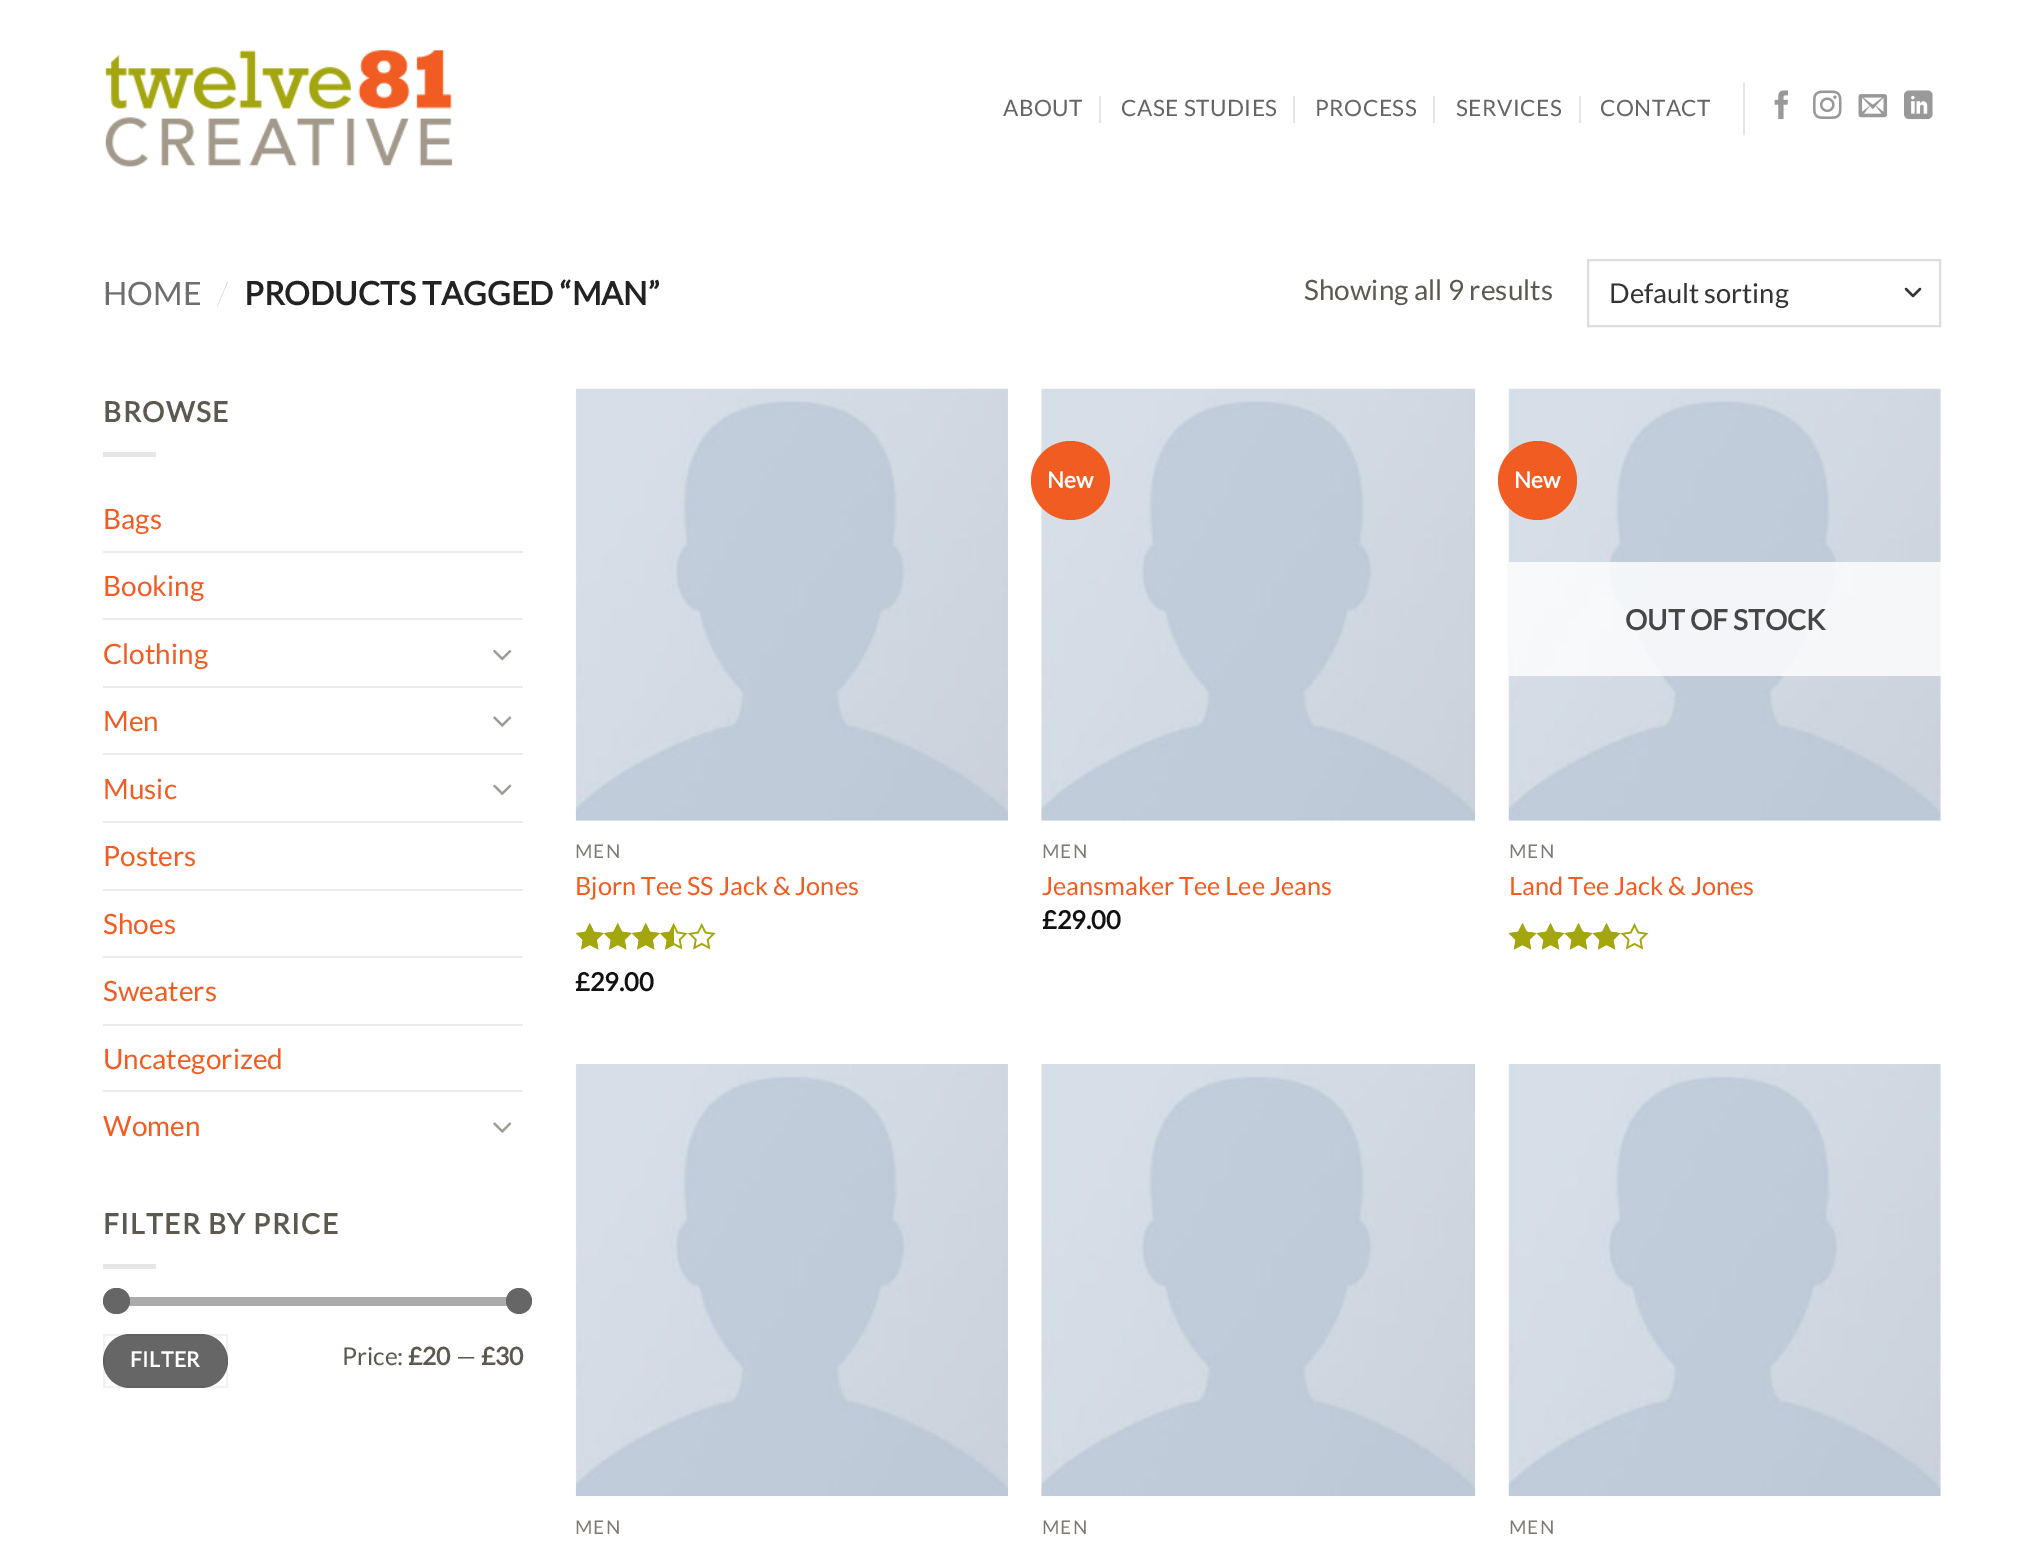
%!PS-Adobe-3.0
%%BoundingBox: 0 0 2044 1541
%%LanguageLevel: 3
%%Pages: 1
%%EndComments
%%BeginProlog
/m { moveto } bind def
/l { lineto } bind def
/f { fill } bind def
/S { stroke } bind def
/w { setlinewidth } bind def
/fn { [ exch dup neg 0 0 3 -1 roll 0 0 ] selectfont } def
/tx { moveto show } def
/bx { rectfill } def
/al { dup .setfillconstantalpha .setstrokeconstantalpha } def
/ci { newpath 0 360 arc closepath } def
/rr { 5 dict begin { /r /h /w /y /x } { exch def } forall
  x r add y moveto x w add y 2 copy h add r arct x w add y h add x 1 index r arct
  x y h add x y r arct x y 2 copy exch w add exch r arct closepath end } def
/im { 5 dict begin { /h /w /y /x /name } { exch def } forall
  gsave x y translate w h scale
  w h 8 [w 0 0 h 0 0] name (r) file false 3 colorimage grestore end } def
%%EndProlog
%%BeginSetup
<< /PageSize [2044 1541] /PageUsesTransparency true >> setpagedevice
%%EndSetup
%%Page: 1 1
0 .pushpdf14devicefilter
0 1541 translate 1 -1 scale
4 setmiterlimit
1 setgray
0 0 2044 1541 bx
(image0.raw) 105 50 348 117 im
/Lato-Regular 22.5 fn
0.396 setgray
1003 116 m 0.5 0 (ABOUT) ashow
0.902 setgray
1099 96 2 27 bx
0.396 setgray
1121 116 m 0.5 0 (CASE STUDIES) ashow
0.902 setgray
1293 96 2 27 bx
0.396 setgray
1315 116 m 0.5 0 (PROCESS) ashow
0.902 setgray
1433 96 2 27 bx
0.396 setgray
1456 116 m 0.5 0 (SERVICES) ashow
0.902 setgray
1579 96 2 27 bx
0.396 setgray
1600 116 m 0.5 0 (CONTACT) ashow
0.902 setgray
1743 82 2 53 bx
(image1.raw) 1774 90 14 30 im
(image2.raw) 1813 90 29 30 im
(image3.raw) 1858 94 30 24 im
(image4.raw) 1904 90 29 30 im
/Lato-Regular 32.25 fn
0.431 setgray
(HOME) 103 305 tx
/Lato-Thin 32.25 fn
0.698 setgray
(/) 217 305 tx
/Lato-Bold 32.25 fn
0.133 setgray
(PRODUCTS TAGGED “MAN”) 244 305 tx
/Lato-Regular 28 fn
0.365 0.345 0.314 setrgbcolor
(Showing all 9 results) 1304 300 tx
0.2 setgray
2.3 w
1 setlinecap
1 setlinejoin
1906 289 m 1913 296 l 1920 289 l S
0.867 setgray
2 w
0 setlinecap
0 setlinejoin
1588 260 352 66 rectstroke
/Lato-Regular 27.25 fn
0.2 setgray
(Default sorting) 1609 303 tx
/Lato-Bold 28 fn
0.365 0.345 0.314 setrgbcolor
103 422 m 1.4 0 (BROWSE) ashow
0.902 setgray
103 452 53 5 bx
/Lato-Regular 28 fn
0.945 0.361 0.133 setrgbcolor
(Bags) 103 529 tx
0.925 setgray
103 551 420 2 bx
0.945 0.361 0.133 setrgbcolor
(Booking) 103 596 tx
0.925 setgray
103 618 420 2 bx
0.945 0.361 0.133 setrgbcolor
(Clothing) 103 664 tx
(image5.raw) 493 649 19 12 im
0.925 setgray
103 686 420 2 bx
0.945 0.361 0.133 setrgbcolor
(Men) 103 731 tx
(image6.raw) 493 716 19 11 im
0.925 setgray
103 753 420 2 bx
0.945 0.361 0.133 setrgbcolor
(Music) 103 799 tx
(image7.raw) 493 784 19 12 im
0.925 setgray
103 821 420 2 bx
0.945 0.361 0.133 setrgbcolor
(Posters) 103 866 tx
0.925 setgray
103 889 420 2 bx
0.945 0.361 0.133 setrgbcolor
(Shoes) 103 934 tx
0.925 setgray
103 956 420 2 bx
0.945 0.361 0.133 setrgbcolor
(Sweaters) 103 1001 tx
0.925 setgray
103 1024 420 2 bx
0.945 0.361 0.133 setrgbcolor
(Uncategorized) 103 1069 tx
0.925 setgray
103 1090 420 2 bx
0.945 0.361 0.133 setrgbcolor
(Women) 103 1136 tx
(image6.raw) 493 1122 19 11 im
/Lato-Bold 28 fn
0.365 0.345 0.314 setrgbcolor
103 1234 m 1.4 0 (FILTER BY PRICE) ashow
0.902 setgray
103 1264 53 5 bx
0.945 setgray
103 1297 420 9 4.5 rr f
0.5 al
0.4 setgray
103 1297 420 9 4.5 rr f
1 al
103 1288 27 26 13 rr f
519 1301 13 ci f
103 1334 125 54 27 rr f
0.05 al
0 setgray
104 1335 123 52 rectstroke
/Lato-Bold 21 fn
1 al
1 setgray
130 1367 m 0.5 0 (FILTER) ashow
/Lato-Regular 24.5 fn
0.365 0.345 0.314 setrgbcolor
(Price:) 342 1365 tx
/Lato-Bold 24.5 fn
(£20) 408 1365 tx
/Lato-Regular 24.5 fn
(—) 456 1365 tx
/Lato-Bold 24.5 fn
(£30) 481 1365 tx
(image8.raw) 1041 388 435 433 im
0.945 0.361 0.133 setrgbcolor
1070.5 480.5 39.5 ci f
/Lato-Bold 22.5 fn
1 setgray
(New) 1047 488 tx
/Lato-Regular 19 fn
0.49 0.475 0.451 setrgbcolor
1042 858 m 1 0 (MEN) ashow
/Lato-Regular 25.25 fn
0.945 0.361 0.133 setrgbcolor
(Jeansmaker Tee Lee Jeans) 1042 895 tx
/Lato-Bold 25.25 fn
0.067 setgray
(£29.00) 1042 929 tx
(image9.raw) 1508 388 433 433 im
0.945 0.361 0.133 setrgbcolor
1537.5 480.5 39.5 ci f
/Lato-Bold 22.5 fn
1 setgray
(New) 1514 488 tx
0.81 al
1509 562 432 114 bx
/Lato-Bold 28 fn
1 al
0.275 0.275 0.278 setrgbcolor
(OUT OF STOCK) 1625 630 tx
/Lato-Regular 19 fn
0.49 0.475 0.451 setrgbcolor
1509 858 m 1 0 (MEN) ashow
/Lato-Regular 25.25 fn
0.945 0.361 0.133 setrgbcolor
(Land Tee Jack & Jones) 1509 895 tx
(image10.raw) 1509 923 140 27 im
(image11.raw) 1509 923 113 27 im
(image12.raw) 575 388 433 433 im
/Lato-Regular 19 fn
0.49 0.475 0.451 setrgbcolor
575 858 m 1 0 (MEN) ashow
/Lato-Regular 25.25 fn
0.945 0.361 0.133 setrgbcolor
(Bjorn Tee SS Jack & Jones) 575 895 tx
(image13.raw) 576 923 140 27 im
(image14.raw) 576 923 98 27 im
/Lato-Bold 25.25 fn
0.067 setgray
(£29.00) 575 991 tx
(image15.raw) 575 1064 433 433 im
/Lato-Regular 19 fn
0.49 0.475 0.451 setrgbcolor
575 1534 m 1 0 (MEN) ashow
(image16.raw) 1041 1064 435 433 im
1042 1534 m 1 0 (MEN) ashow
(image17.raw) 1508 1064 433 433 im
1509 1534 m 1 0 (MEN) ashow
.poppdf14devicefilter showpage
%%EOF
